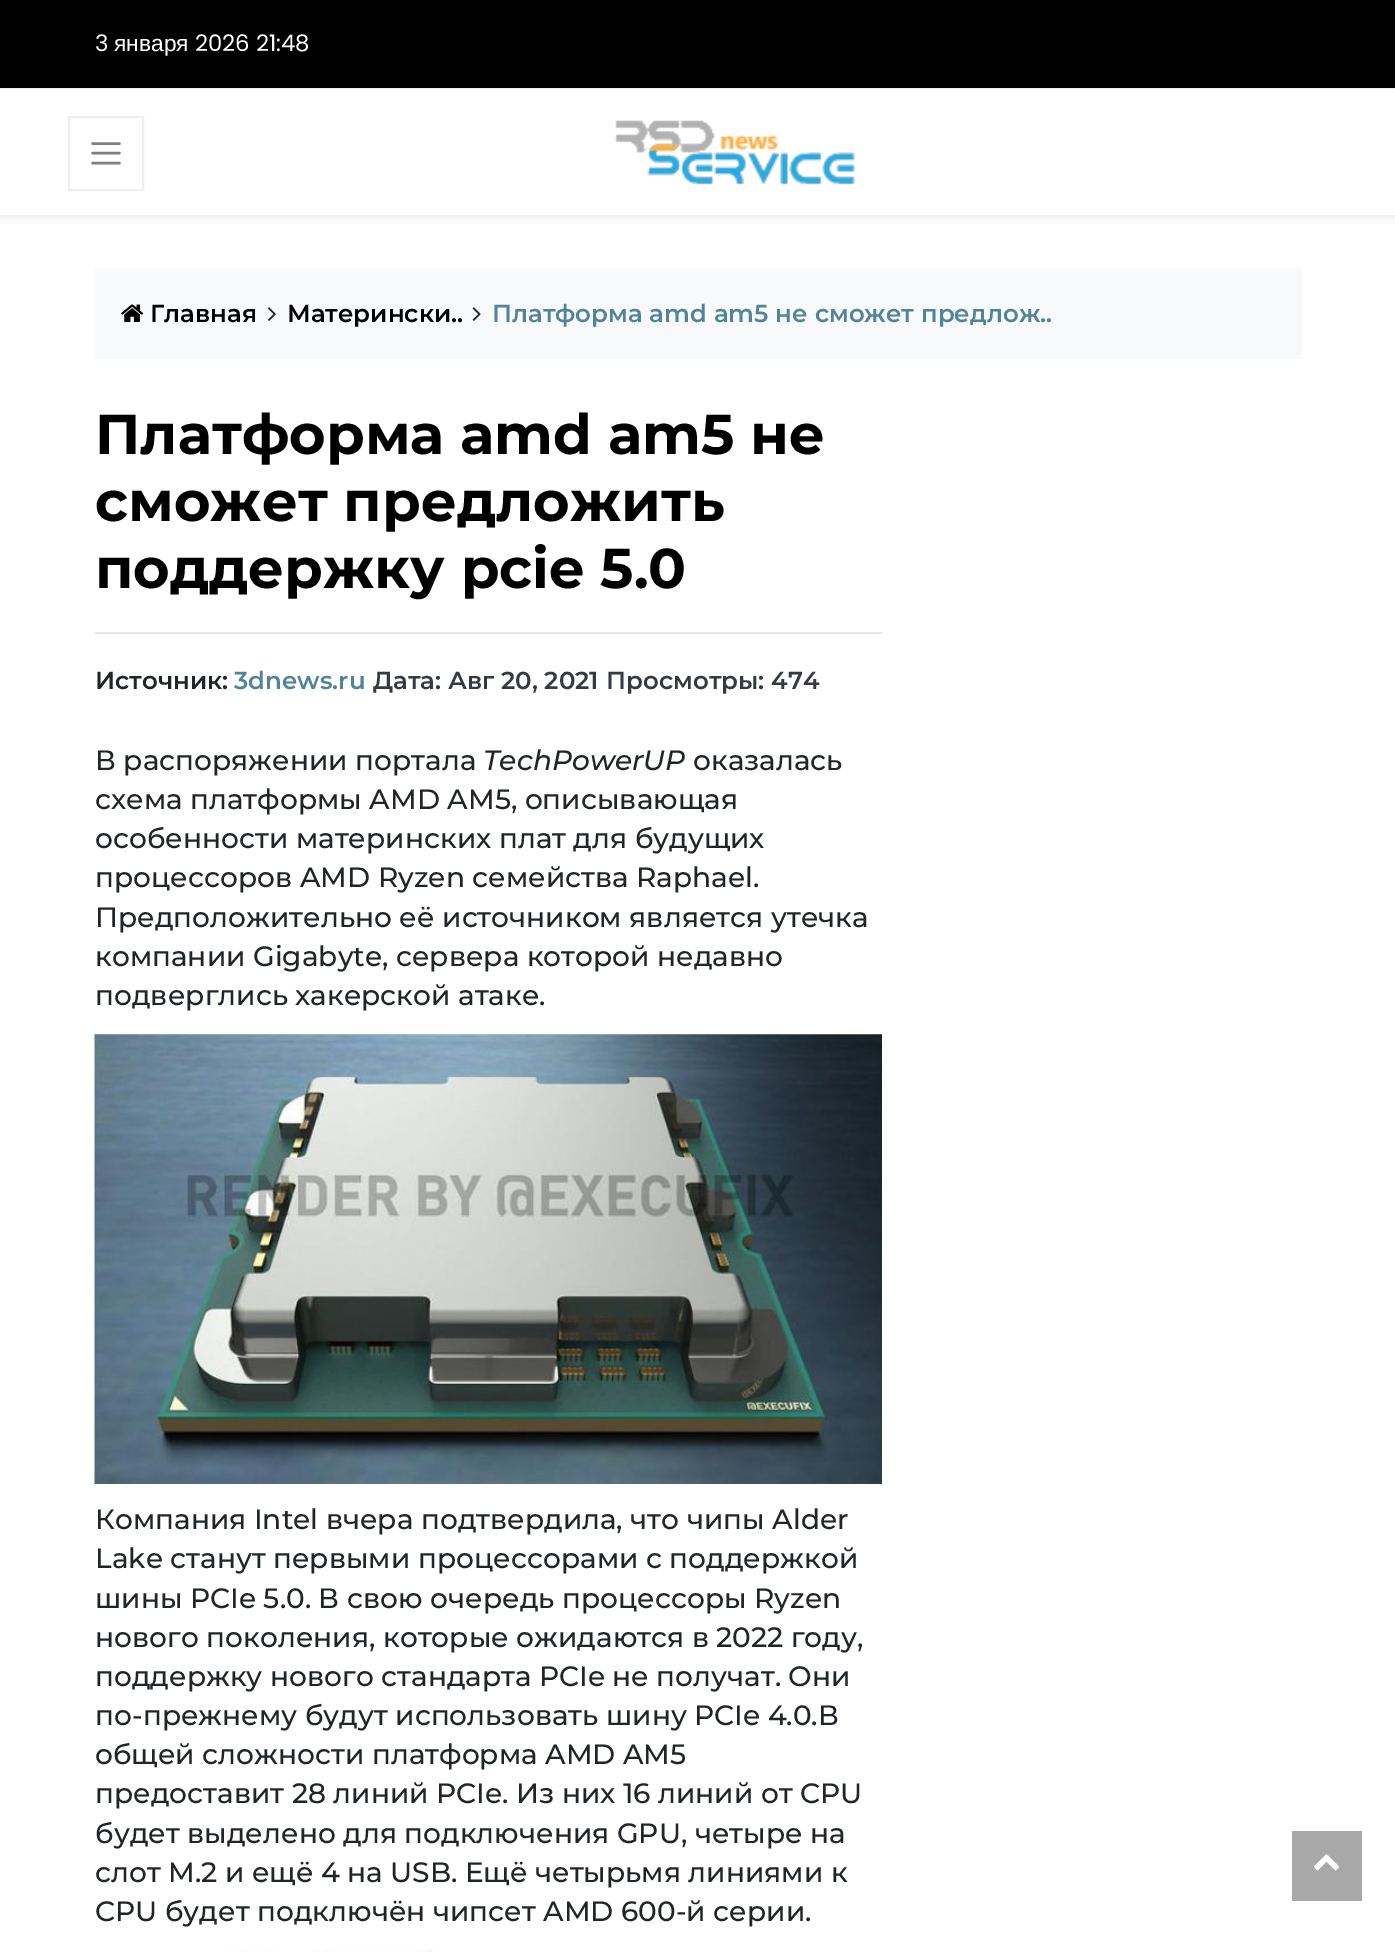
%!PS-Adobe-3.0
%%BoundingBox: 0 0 1395 1952
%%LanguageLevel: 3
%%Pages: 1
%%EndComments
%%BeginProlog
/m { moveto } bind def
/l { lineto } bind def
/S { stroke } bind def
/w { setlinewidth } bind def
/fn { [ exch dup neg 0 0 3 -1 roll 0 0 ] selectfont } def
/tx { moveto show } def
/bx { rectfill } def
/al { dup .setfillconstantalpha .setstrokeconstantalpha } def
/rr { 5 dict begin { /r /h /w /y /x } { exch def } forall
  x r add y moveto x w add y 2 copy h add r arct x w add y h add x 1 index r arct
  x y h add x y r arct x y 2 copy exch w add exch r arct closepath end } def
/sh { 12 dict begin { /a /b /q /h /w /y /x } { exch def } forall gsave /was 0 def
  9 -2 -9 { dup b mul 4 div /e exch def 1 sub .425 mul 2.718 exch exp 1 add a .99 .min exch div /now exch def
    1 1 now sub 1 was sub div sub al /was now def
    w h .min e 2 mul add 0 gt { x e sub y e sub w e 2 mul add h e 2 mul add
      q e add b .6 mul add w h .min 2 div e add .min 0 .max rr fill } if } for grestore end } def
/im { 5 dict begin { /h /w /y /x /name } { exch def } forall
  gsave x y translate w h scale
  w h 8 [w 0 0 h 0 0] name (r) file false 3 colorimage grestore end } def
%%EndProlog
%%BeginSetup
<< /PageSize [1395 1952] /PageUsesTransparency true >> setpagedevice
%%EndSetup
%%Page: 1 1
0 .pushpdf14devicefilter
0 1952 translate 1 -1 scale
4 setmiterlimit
1 setgray
0 0 1395 1952 bx
0 setgray
0 0 1395 88 bx
/Poppins-Regular 22.75 fn
1 setgray
(3) 95 51 tx
/LiberationSans-Regular 22.75 fn
(января) 114 51 tx
/Poppins-Regular 22.75 fn
(2026 21:48) 195 51 tx
0.945 setgray
0 88 1395 1 bx
0.392 setgray
0 93 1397 126 0 2.5 0.1 sh
1 setgray
0 91 1395 124 bx
0.933 setgray
2 w
69 117 74 73 rectstroke
0.502 setgray
2.4 w
1 setlinecap
92.5 143.5 m 119.5 143.5 l 92.5 153 m 119.5 153 l 92.5 163 m 119.5 163 l S
(image0.raw) 615 120 240 65 im
0.973 0.976 0.98 setrgbcolor
95 268 1207 91 bx
(image1.raw) 121 304 23 18 im
/Montserrat-SemiBold 24.5 fn
0 setgray
(Главная) 150 322 tx
(image2.raw) 268 307 8 14 im
(Матерински..) 287 322 tx
(image3.raw) 472 307 9 14 im
0.318 0.518 0.604 setrgbcolor
(Платформа amd am5 не сможет предлож..) 492 322 tx
/Montserrat-Bold 56 fn
0 setgray
(Платформа amd am5 не) 95 454 tx
(сможет предложить) 95 521 tx
(поддержку pcie 5.0) 95 588 tx
0.902 setgray
95 632 787 2 bx
/Montserrat-SemiBold 24.5 fn
0.129 0.145 0.161 setrgbcolor
(Источник:) 95 689 tx
0.318 0.518 0.604 setrgbcolor
(3dnews.ru) 234 689 tx
0.204 0.227 0.251 setrgbcolor
(Дата: Авг 20, 2021) 373 689 tx
(Просмотры: 474) 606 689 tx
/Montserrat-Medium 28 fn
0.129 0.145 0.161 setrgbcolor
(В распоряжении портала) 95 770 tx
/Montserrat-MediumItalic 28 fn
(TechPowerUP) 483 770 tx
/Montserrat-Medium 28 fn
(оказалась) 693 770 tx
(схема платформы AMD AM5, описывающая) 95 809 tx
(особенности материнских плат для будущих) 95 848 tx
(процессоров AMD Ryzen семейства Raphael.) 95 887 tx
(Предположительно её источником является утечка) 95 927 tx
(компании Gigabyte, сервера которой недавно) 95 966 tx
(подверглись хакерской атаке.) 95 1005 tx
(image4.raw) 94 1034 788 450 im
(Компания Intel вчера подтвердила, что чипы Alder) 95 1529 tx
(Lake станут первыми процессорами с поддержкой) 95 1568 tx
(шины PCIe 5.0. В свою очередь процессоры Ryzen) 95 1608 tx
(нового поколения, которые ожидаются в 2022 году,) 95 1647 tx
(поддержку нового стандарта PCIe не получат. Они) 95 1686 tx
(по-прежнему будут использовать шину PCIe 4.0.В) 95 1725 tx
(общей сложности платформа AMD AM5) 95 1764 tx
(предоставит 28 линий PCIe. Из них 16 линий от CPU) 95 1803 tx
(будет выделено для подключения GPU, четыре на) 95 1843 tx
(слот M.2 и ещё 4 на USB. Ещё четырьмя линиями к) 95 1882 tx
(CPU будет подключён чипсет AMD 600-й серии.) 95 1921 tx
(image5.raw) 228 1949 208 3 im
0.659 setgray
1292 1831 70 70 bx
(image6.raw) 1314 1854 25 17 im
.poppdf14devicefilter showpage
%%EOF
